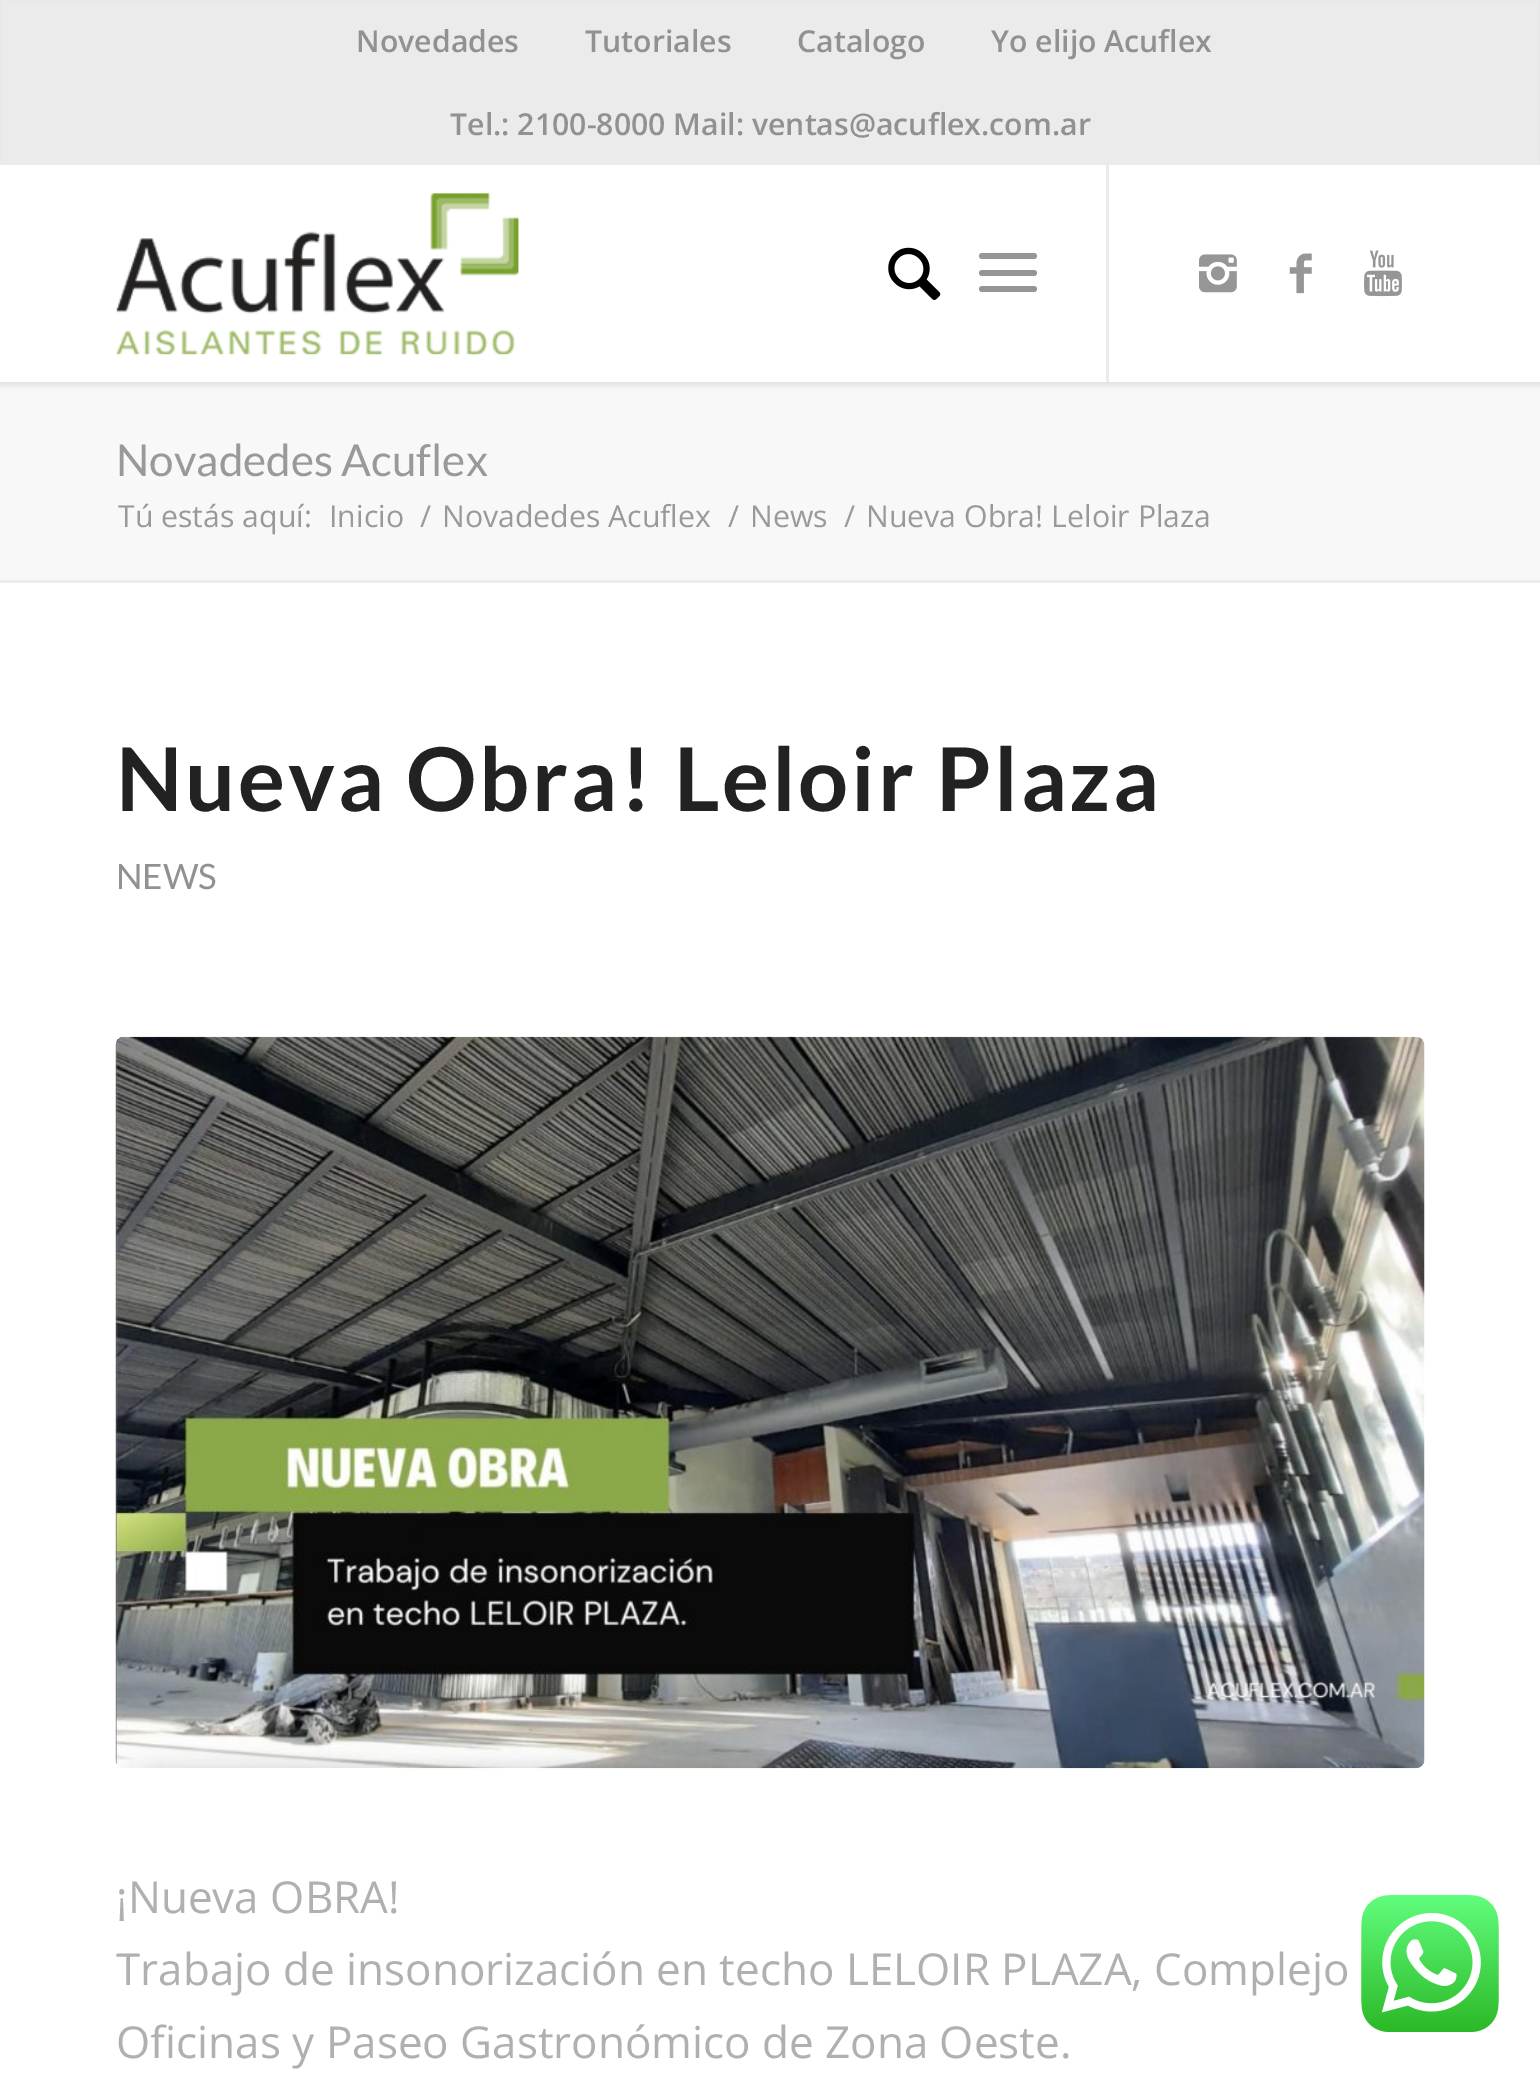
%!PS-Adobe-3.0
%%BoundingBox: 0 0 1540 2073
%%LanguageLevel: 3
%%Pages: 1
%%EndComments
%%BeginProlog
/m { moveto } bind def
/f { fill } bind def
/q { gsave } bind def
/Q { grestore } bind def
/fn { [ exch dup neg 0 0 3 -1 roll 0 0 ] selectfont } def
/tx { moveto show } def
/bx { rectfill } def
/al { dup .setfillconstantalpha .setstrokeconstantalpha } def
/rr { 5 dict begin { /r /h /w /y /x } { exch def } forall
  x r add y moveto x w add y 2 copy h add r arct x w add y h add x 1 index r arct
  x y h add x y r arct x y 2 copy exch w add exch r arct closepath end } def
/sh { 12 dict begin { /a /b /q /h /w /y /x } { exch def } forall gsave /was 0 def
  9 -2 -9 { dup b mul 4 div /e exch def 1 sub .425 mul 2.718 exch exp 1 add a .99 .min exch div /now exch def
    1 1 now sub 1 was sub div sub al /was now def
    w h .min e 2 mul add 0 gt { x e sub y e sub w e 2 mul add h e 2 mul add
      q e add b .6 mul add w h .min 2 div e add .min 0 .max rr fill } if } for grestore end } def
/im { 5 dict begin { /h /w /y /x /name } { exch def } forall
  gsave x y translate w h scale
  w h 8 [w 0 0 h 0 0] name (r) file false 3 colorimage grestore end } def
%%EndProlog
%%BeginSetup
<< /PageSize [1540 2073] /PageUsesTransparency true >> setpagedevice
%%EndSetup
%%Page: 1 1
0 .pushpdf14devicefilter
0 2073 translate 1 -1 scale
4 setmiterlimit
1 setgray
0 0 1540 2073 bx
0.973 setgray
0 382 1540 198 bx
0 setgray
-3 -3 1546 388 0 3 0.1 sh
1 setgray
0 165 1540 217 bx
0.922 setgray
1106 162 3 220 bx
1 1 1538 164 bx
/OpenSans-SemiBold 30.25 fn
0.569 setgray
(Novedades) 356 52 tx
(Tutoriales) 585 52 tx
(Catalogo) 797 52 tx
(Yo elijo Acuflex) 991 52 tx
(Tel.: 2100-8000 Mail: ventas@acuflex.com.ar) 450 135 tx
(image0.raw) 116 193 403 162 im
(image1.raw) 888 247 53 53 im
0.588 setgray
979 270 58 6 3 rr f
979 253 58 6 3 rr f
979 286 58 6 3 rr f
(image2.raw) 1199 254 38 39 im
(image3.raw) 1289 253 23 41 im
(image4.raw) 1364 250 38 47 im
/Lato-Regular 44 fn
0.6 setgray
(Novadedes Acuflex) 116 476 tx
/OpenSans-Regular 30.25 fn
(Tú estás aquí:) 118 527 tx
(Inicio) 329 527 tx
(/) 420 527 tx
(Novadedes Acuflex) 442 527 tx
(/) 728 527 tx
(News) 750 527 tx
(/) 844 527 tx
(Nueva Obra! Leloir Plaza) 866 527 tx
0.922 setgray
0 580 1540 3 bx
/Lato-Bold 88 fn
0.133 setgray
116 811 m 2.75 0 (Nueva Obra! Leloir Plaza) ashow
/Lato-Regular 35 fn
0.569 setgray
(NEWS) 116 889 tx
(image5.raw) 115 1036 1310 733 im
/OpenSans-Regular 44 fn
0.69 setgray
(¡Nueva OBRA!) 116 1913 tx
q
116 721 1309 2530 rectclip
(Trabajo de insonorización en techo LELOIR PLAZA, Complejo) 116 1985 tx
Q
(Oficinas y Paseo Gastronómico de Zona Oeste.) 116 2058 tx
(image6.raw) 1361 1895 138 137 im
.poppdf14devicefilter showpage
%%EOF
